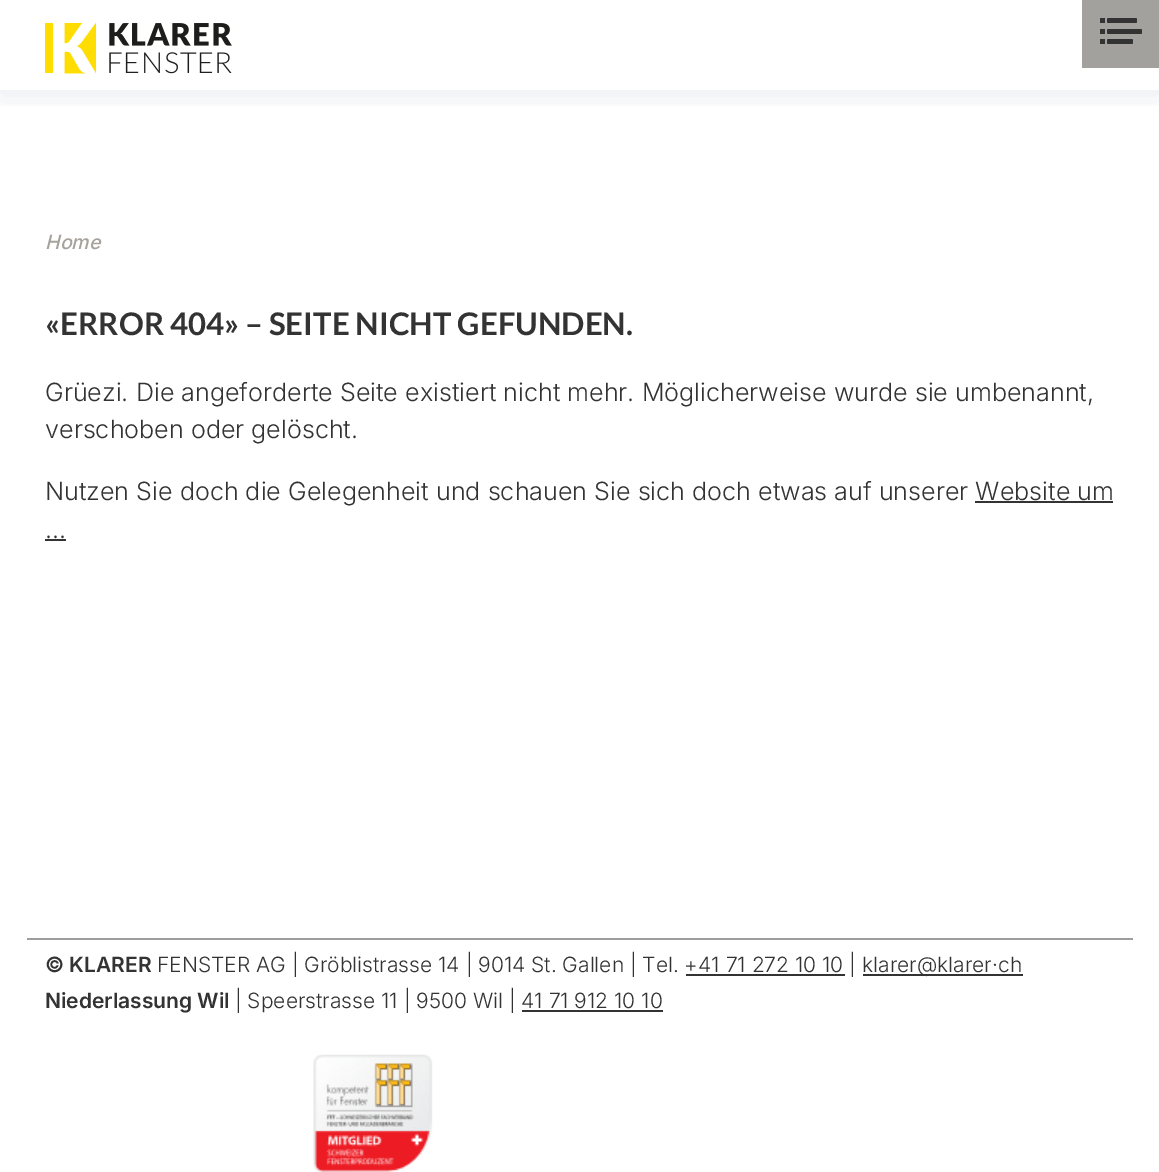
%!PS-Adobe-3.0
%%BoundingBox: 0 0 1159 1172
%%LanguageLevel: 3
%%Pages: 1
%%EndComments
%%BeginProlog
/f { fill } bind def
/q { gsave } bind def
/Q { grestore } bind def
/fn { [ exch dup neg 0 0 3 -1 roll 0 0 ] selectfont } def
/tx { moveto show } def
/bx { rectfill } def
/al { dup .setfillconstantalpha .setstrokeconstantalpha } def
/rr { 5 dict begin { /r /h /w /y /x } { exch def } forall
  x r add y moveto x w add y 2 copy h add r arct x w add y h add x 1 index r arct
  x y h add x y r arct x y 2 copy exch w add exch r arct closepath end } def
/sh { 12 dict begin { /a /b /q /h /w /y /x } { exch def } forall gsave /was 0 def
  9 -2 -9 { dup b mul 4 div /e exch def 1 sub .425 mul 2.718 exch exp 1 add a .99 .min exch div /now exch def
    1 1 now sub 1 was sub div sub al /was now def
    w h .min e 2 mul add 0 gt { x e sub y e sub w e 2 mul add h e 2 mul add
      q e add b .6 mul add w h .min 2 div e add .min 0 .max rr fill } if } for grestore end } def
/im { 5 dict begin { /h /w /y /x /name } { exch def } forall
  gsave x y translate w h scale
  w h 8 [w 0 0 h 0 0] name (r) file false 3 colorimage grestore end } def
%%EndProlog
%%BeginSetup
<< /PageSize [1159 1172] /PageUsesTransparency true >> setpagedevice
%%EndSetup
%%Page: 1 1
0 .pushpdf14devicefilter
0 1172 translate 1 -1 scale
4 setmiterlimit
1 setgray
0 0 1159 1172 bx
q
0 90 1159 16 rectclip
0.004 0.161 0.439 setrgbcolor
0 3 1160 90 0 15 0.1 sh
Q
(image0.raw) 45 23 187 51 im
0.639 0.631 0.62 setrgbcolor
1082 0 77 68 bx
0.2 setgray
1107 18 30 5 1.5 rr f
1100 18 5 5 bx
1107 29 35 5 1.5 rr f
1100 29 5 5 bx
1107 39 26 5 1.5 rr f
1100 39 5 5 bx
/Inter-MediumItalic 19.5 fn
0.655 0.635 0.612 setrgbcolor
(Home) 45 249 tx
/Lato-Bold 31.1 fn
0.2 setgray
(«ERROR 404» – SEITE NICHT GEFUNDEN.) 45 335 tx
/Inter-Light 25.1 fn
(Grüezi. Die angeforderte Seite existiert nicht mehr. Möglicherweise wurde sie umbenannt,) 45 401 tx
(verschoben oder gelöscht.) 45 438 tx
(Nutzen Sie doch die Gelegenheit und schauen Sie sich doch etwas auf unserer Website um) 45 500 tx
(...) 45 538 tx
975 501 138 2 bx
45 539 21 2 bx
0.62 setgray
27 938 1106 2 bx
/Inter-SemiBold 21 fn
0.2 setgray
(© KLARER) 45 972 tx
/Inter-Light 21 fn
(FENSTER AG | Gröblistrasse 14 | 9014 St. Gallen | Tel. +41 71 272 10 10 |) 157 972 tx
863 974 160 2 bx
(klarer@klarer·ch) 862 972 tx
686 974 159 2 bx
/Inter-SemiBold 21 fn
(Niederlassung Wil) 45 1008 tx
/Inter-Light 21 fn
(| Speerstrasse 11 | 9500 Wil | 41 71 912 10 10) 235 1008 tx
522 1010 141 2 bx
(image1.raw) 313 1054 120 118 im
.poppdf14devicefilter showpage
%%EOF
